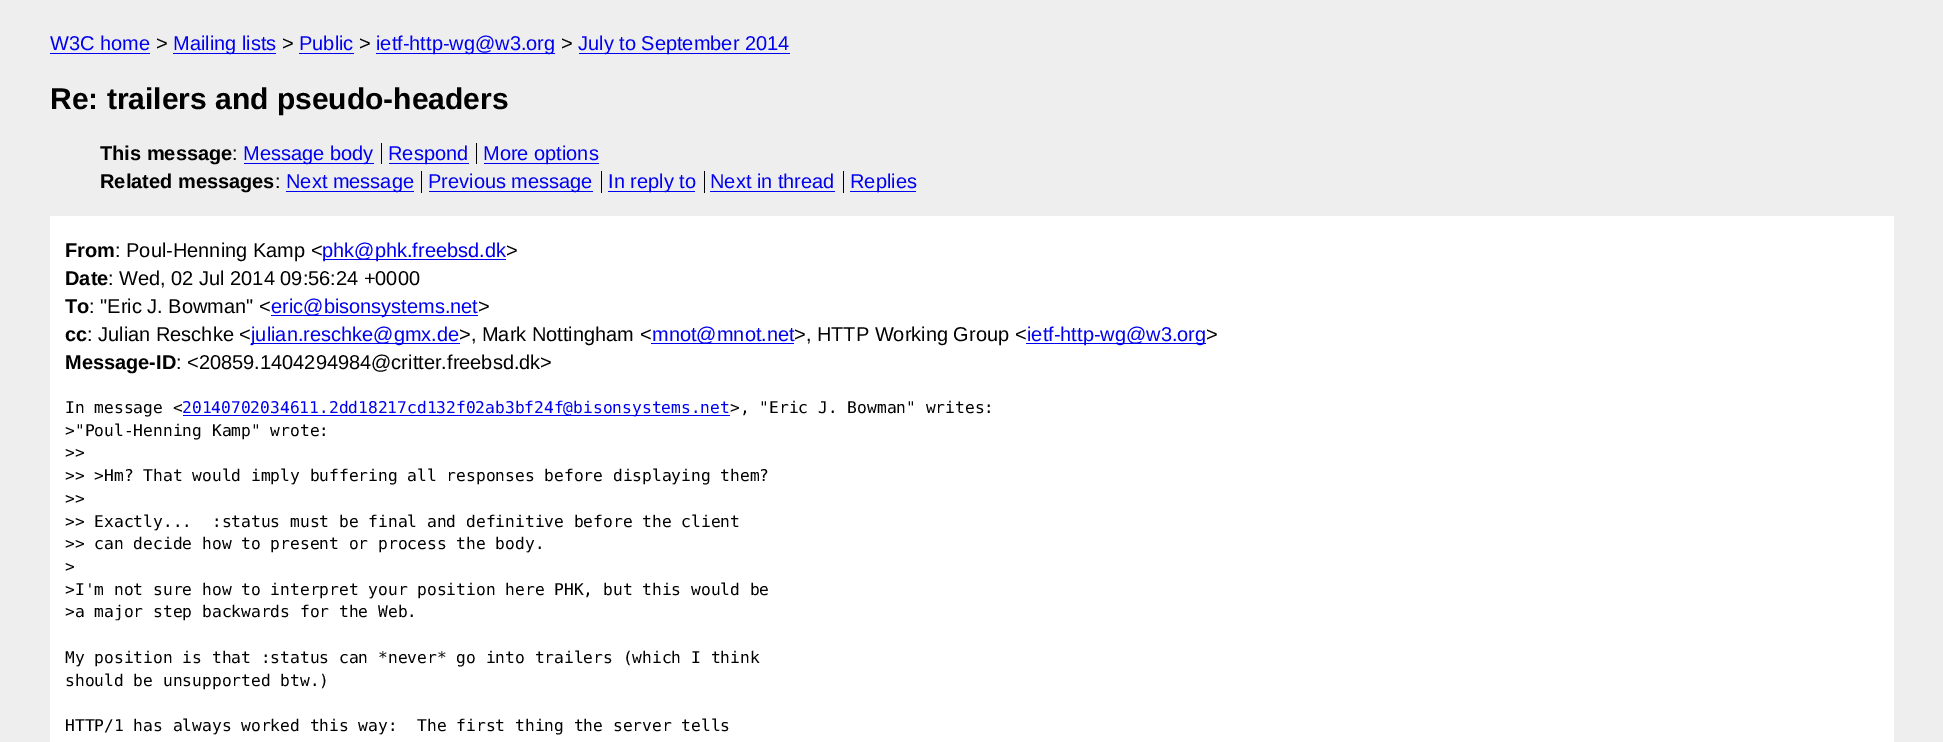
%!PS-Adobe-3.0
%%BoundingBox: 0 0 1943 742
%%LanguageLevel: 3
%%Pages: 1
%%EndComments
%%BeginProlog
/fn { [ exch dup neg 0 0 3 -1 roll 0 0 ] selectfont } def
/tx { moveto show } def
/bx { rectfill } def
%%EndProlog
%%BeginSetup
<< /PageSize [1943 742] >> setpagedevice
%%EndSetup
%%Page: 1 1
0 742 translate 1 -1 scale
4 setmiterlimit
0.933 setgray
0 0 1943 742 bx
/LiberationSans-Regular 20 fn
0 0 0.933 setrgbcolor
(W3C home) 50 50 tx
50 53 100 1 bx
0 setgray
(>) 156 50 tx
0 0 0.933 setrgbcolor
173 53 103 1 bx
(Mailing lists) 173 50 tx
0 setgray
(>) 282 50 tx
0 0 0.933 setrgbcolor
(Public) 299 50 tx
299 53 55 1 bx
0 setgray
(>) 359 50 tx
0 0 0.933 setrgbcolor
376 53 179 1 bx
(ietf-http-wg@w3.org) 376 50 tx
0 setgray
(>) 561 50 tx
0 0 0.933 setrgbcolor
579 53 211 1 bx
(July to September 2014) 578 50 tx
/LiberationSans-Bold 30 fn
0 setgray
(Re: trailers and pseudo-headers) 50 109 tx
/LiberationSans-Bold 20 fn
(This message) 100 160 tx
/LiberationSans-Regular 20 fn
(:) 232 160 tx
0 0 0.933 setrgbcolor
244 163 130 1 bx
(Message body) 243 160 tx
0 setgray
381 143 1 21 bx
0 0 0.933 setrgbcolor
389 163 80 1 bx
(Respond) 388 160 tx
484 163 115 1 bx
(More options) 483 160 tx
0 setgray
476 143 1 21 bx
/LiberationSans-Bold 20 fn
(Related messages) 100 188 tx
/LiberationSans-Regular 20 fn
(:) 275 188 tx
0 0 0.933 setrgbcolor
286 191 128 1 bx
(Next message) 286 188 tx
429 191 164 1 bx
(Previous message) 428 188 tx
0 setgray
421 171 1 22 bx
0 0 0.933 setrgbcolor
608 191 87 1 bx
(In reply to) 608 188 tx
0 setgray
601 171 1 22 bx
0 0 0.933 setrgbcolor
(Next in thread) 710 188 tx
0 setgray
704 171 1 22 bx
0 0 0.933 setrgbcolor
710 191 125 1 bx
850 191 66 1 bx
(Replies) 850 188 tx
0 setgray
843 171 1 22 bx
1 setgray
50 216 1844 526 bx
/LiberationSans-Bold 20 fn
0 setgray
(From) 65 257 tx
/LiberationSans-Regular 20 fn
(: Poul-Henning Kamp <) 115 257 tx
0 0 0.933 setrgbcolor
323 259 183 1 bx
(phk@phk.freebsd.dk) 322 257 tx
0 setgray
(>) 506 257 tx
/LiberationSans-Bold 20 fn
(Date) 65 285 tx
/LiberationSans-Regular 20 fn
(: Wed, 02 Jul 2014 09:56:24 +0000) 108 285 tx
/LiberationSans-Bold 20 fn
(To) 65 313 tx
/LiberationSans-Regular 20 fn
(: "Eric J. Bowman" <) 89 313 tx
0 0 0.933 setrgbcolor
271 315 207 1 bx
(eric@bisonsystems.net) 271 313 tx
0 setgray
(>) 478 313 tx
/LiberationSans-Bold 20 fn
(cc) 65 341 tx
/LiberationSans-Regular 20 fn
(: Julian Reschke <) 87 341 tx
0 0 0.933 setrgbcolor
251 343 209 1 bx
(julian.reschke@gmx.de) 251 341 tx
0 setgray
(>, Mark Nottingham <) 459 341 tx
0 0 0.933 setrgbcolor
651 343 143 1 bx
(mnot@mnot.net) 652 341 tx
0 setgray
(>, HTTP Working Group <) 794 341 tx
0 0 0.933 setrgbcolor
1026 343 180 1 bx
(ietf-http-wg@w3.org) 1027 341 tx
0 setgray
(>) 1206 341 tx
/LiberationSans-Bold 20 fn
(Message-ID) 65 369 tx
/LiberationSans-Regular 20 fn
(: <20859.1404294984@critter.freebsd.dk>) 176 369 tx
/DejaVuSansMono-Regular 16.25 fn
(In message <) 65 413 tx
0 0 0.933 setrgbcolor
183 415 547 1 bx
(20140702034611.2dd18217cd132f02ab3bf24f@bisonsystems.net) 182 413 tx
0 setgray
(>, "Eric J. Bowman" writes:) 730 413 tx
(>"Poul-Henning Kamp" wrote:) 65 436 tx
(>>) 65 458 tx
(>> >Hm? That would imply buffering all responses before displaying them?) 65 481 tx
(>>) 65 504 tx
(>> Exactly...  :status must be final and definitive before the client) 65 527 tx
(>> can decide how to present or process the body.) 65 549 tx
(>) 65 572 tx
(>I'm not sure how to interpret your position here PHK, but this would be) 65 595 tx
(>a major step backwards for the Web.) 65 617 tx
(My position is that :status can *never* go into trailers \(which I think) 65 663 tx
(should be unsupported btw.\)) 65 686 tx
(HTTP/1 has always worked this way:  The first thing the server tells) 65 731 tx
showpage
%%EOF
